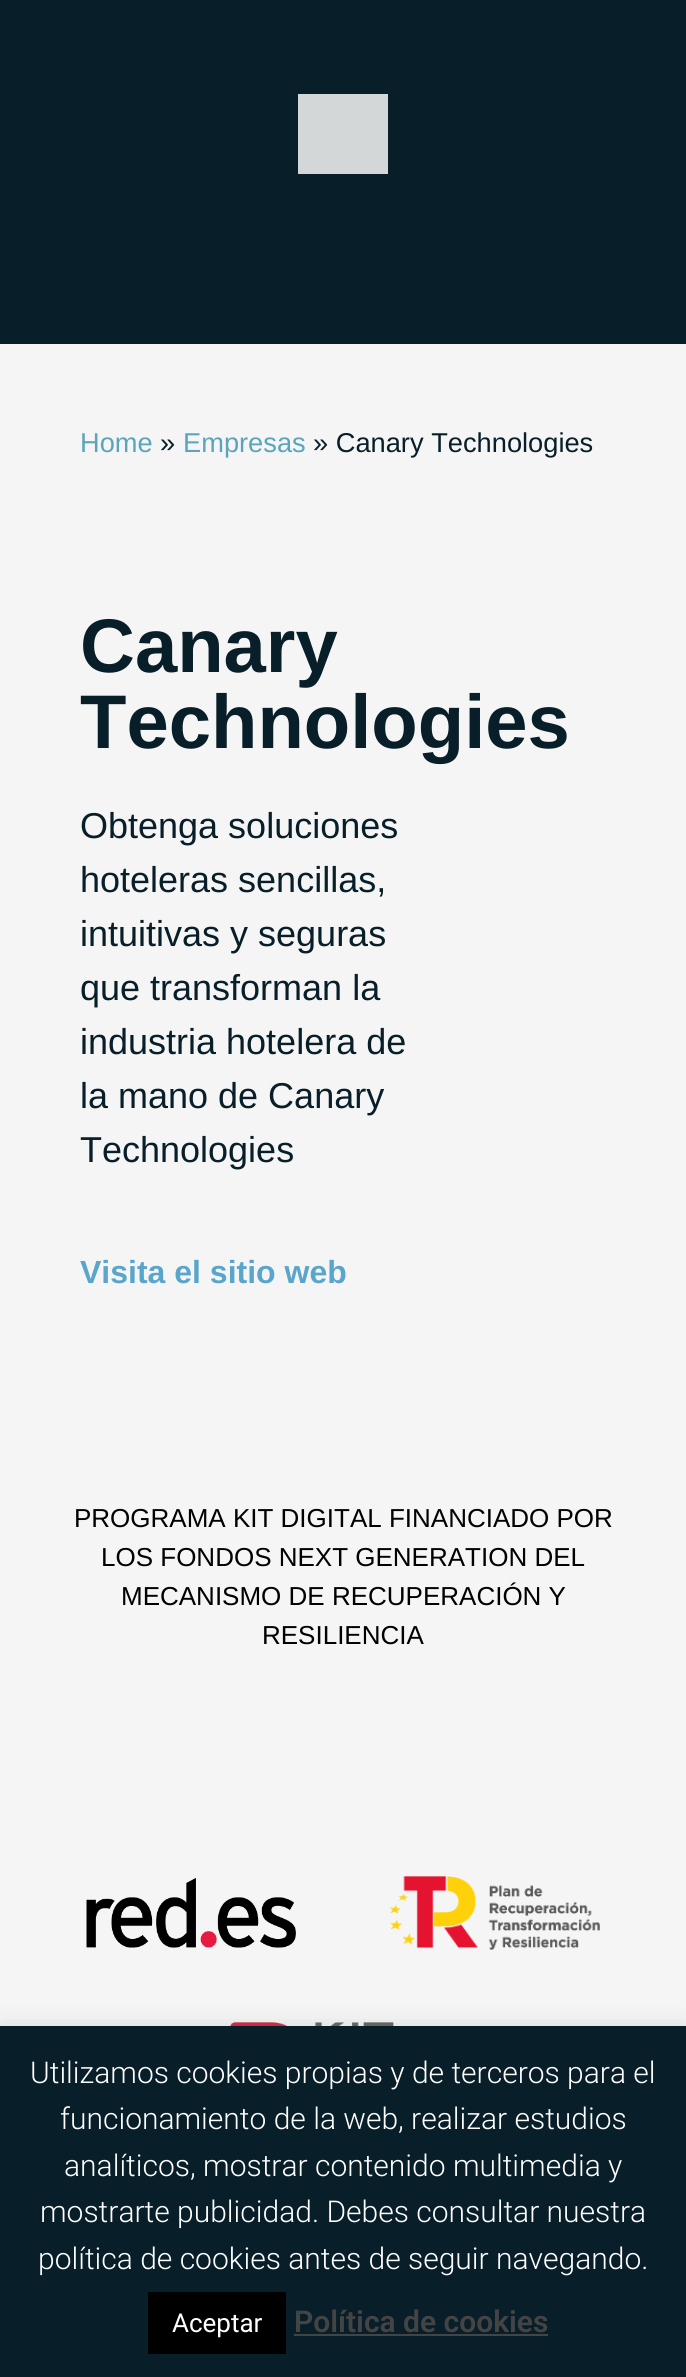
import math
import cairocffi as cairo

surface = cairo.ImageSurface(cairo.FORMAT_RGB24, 686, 2377)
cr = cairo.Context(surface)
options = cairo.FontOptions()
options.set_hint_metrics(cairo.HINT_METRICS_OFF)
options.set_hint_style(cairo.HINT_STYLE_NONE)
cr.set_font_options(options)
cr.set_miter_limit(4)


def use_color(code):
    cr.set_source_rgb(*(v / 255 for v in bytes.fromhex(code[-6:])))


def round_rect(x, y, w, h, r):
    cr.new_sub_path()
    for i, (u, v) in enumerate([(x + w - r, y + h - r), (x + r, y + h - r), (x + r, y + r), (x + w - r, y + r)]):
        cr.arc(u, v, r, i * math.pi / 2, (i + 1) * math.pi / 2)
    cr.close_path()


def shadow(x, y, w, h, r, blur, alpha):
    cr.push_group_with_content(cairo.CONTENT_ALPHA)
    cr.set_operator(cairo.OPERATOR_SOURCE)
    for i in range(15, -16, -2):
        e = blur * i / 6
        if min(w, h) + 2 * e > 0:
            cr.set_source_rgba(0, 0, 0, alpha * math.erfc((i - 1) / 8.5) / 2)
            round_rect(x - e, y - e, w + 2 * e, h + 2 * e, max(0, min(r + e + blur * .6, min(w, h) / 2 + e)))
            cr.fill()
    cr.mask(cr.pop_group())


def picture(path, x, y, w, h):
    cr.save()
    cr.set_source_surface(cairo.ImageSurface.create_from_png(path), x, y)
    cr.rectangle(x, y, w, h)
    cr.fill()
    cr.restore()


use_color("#f5f5f5")
cr.paint()
use_color("#081e29")
cr.rectangle(0, 0, 686, 344)
cr.fill()
use_color("#d3d7d8")
cr.rectangle(298, 94, 90, 80)
cr.fill()
cr.select_font_face("Liberation Sans")
cr.set_font_size(27.25)
use_color("#5aa5bc")
cr.move_to(80, 452)
cr.show_text("Home")
use_color("#081e29")
cr.move_to(160, 452)
cr.show_text("»")
use_color("#5aa5bc")
cr.move_to(183, 452)
cr.show_text("Empresas")
use_color("#081e29")
cr.move_to(313, 452)
cr.show_text("» Canary Technologies")
cr.select_font_face("Liberation Sans", cairo.FONT_SLANT_NORMAL, cairo.FONT_WEIGHT_BOLD)
cr.set_font_size(76)
cr.move_to(80, 672)
cr.show_text("Canary")
cr.move_to(80, 748)
cr.show_text("Technologies")
cr.select_font_face("Liberation Sans")
cr.set_font_size(36)
cr.move_to(80, 838)
cr.show_text("Obtenga soluciones")
cr.move_to(80, 892)
cr.show_text("hoteleras sencillas,")
cr.move_to(80, 946)
cr.show_text("intuitivas y seguras")
cr.move_to(80, 1000)
cr.show_text("que transforman la")
cr.move_to(80, 1054)
cr.show_text("industria hotelera de")
cr.move_to(80, 1108)
cr.show_text("la mano de Canary")
cr.move_to(80, 1162)
cr.show_text("Technologies")
cr.select_font_face("Liberation Sans", cairo.FONT_SLANT_NORMAL, cairo.FONT_WEIGHT_BOLD)
cr.set_font_size(32)
use_color("#5aa5cb")
cr.move_to(80, 1283)
cr.show_text("Visita el sitio web")
cr.select_font_face("Liberation Sans")
cr.set_font_size(26)
use_color("#000000")
cr.move_to(74, 1527)
cr.show_text("PROGRAMA KIT DIGITAL FINANCIADO POR")
cr.move_to(101, 1566)
cr.show_text("LOS FONDOS NEXT GENERATION DEL")
cr.move_to(121, 1605)
cr.show_text("MECANISMO DE RECUPERACIÓN Y")
cr.move_to(262, 1644)
cr.show_text("RESILIENCIA")
picture("img1.png", 86, 1878, 210, 70)
picture("img2.png", 390, 1876, 210, 74)
picture("img3.png", 230, 2022, 164, 4)
use_color("#acabab")
shadow(0, 2024, 686, 352, 0, 10, 0.3)
use_color("#081e29")
cr.rectangle(0, 2026, 686, 351)
cr.fill()
cr.select_font_face("Roboto Light")
cr.set_font_size(30)
use_color("#ffffff")
cr.move_to(30, 2083)
cr.show_text("Utilizamos cookies propias y de terceros para el")
cr.move_to(60, 2129)
cr.show_text("funcionamiento de la web, realizar estudios")
cr.move_to(64, 2176)
cr.show_text("analíticos, mostrar contenido multimedia y")
cr.move_to(40, 2222)
cr.show_text("mostrarte publicidad. Debes consultar nuestra")
cr.move_to(38, 2269)
cr.show_text("política de cookies antes de seguir navegando.")
use_color("#000000")
cr.rectangle(148, 2292, 138, 62)
cr.fill()
cr.select_font_face("Roboto")
cr.set_font_size(26)
use_color("#ffffff")
cr.move_to(172, 2332)
cr.show_text("Aceptar")
cr.select_font_face("Roboto SemiBold")
cr.set_font_size(30)
use_color("#444444")
cr.move_to(294, 2332)
cr.show_text("Política de cookies")
cr.rectangle(294, 2334, 254, 2)
cr.fill()
surface.write_to_png("result.png")
